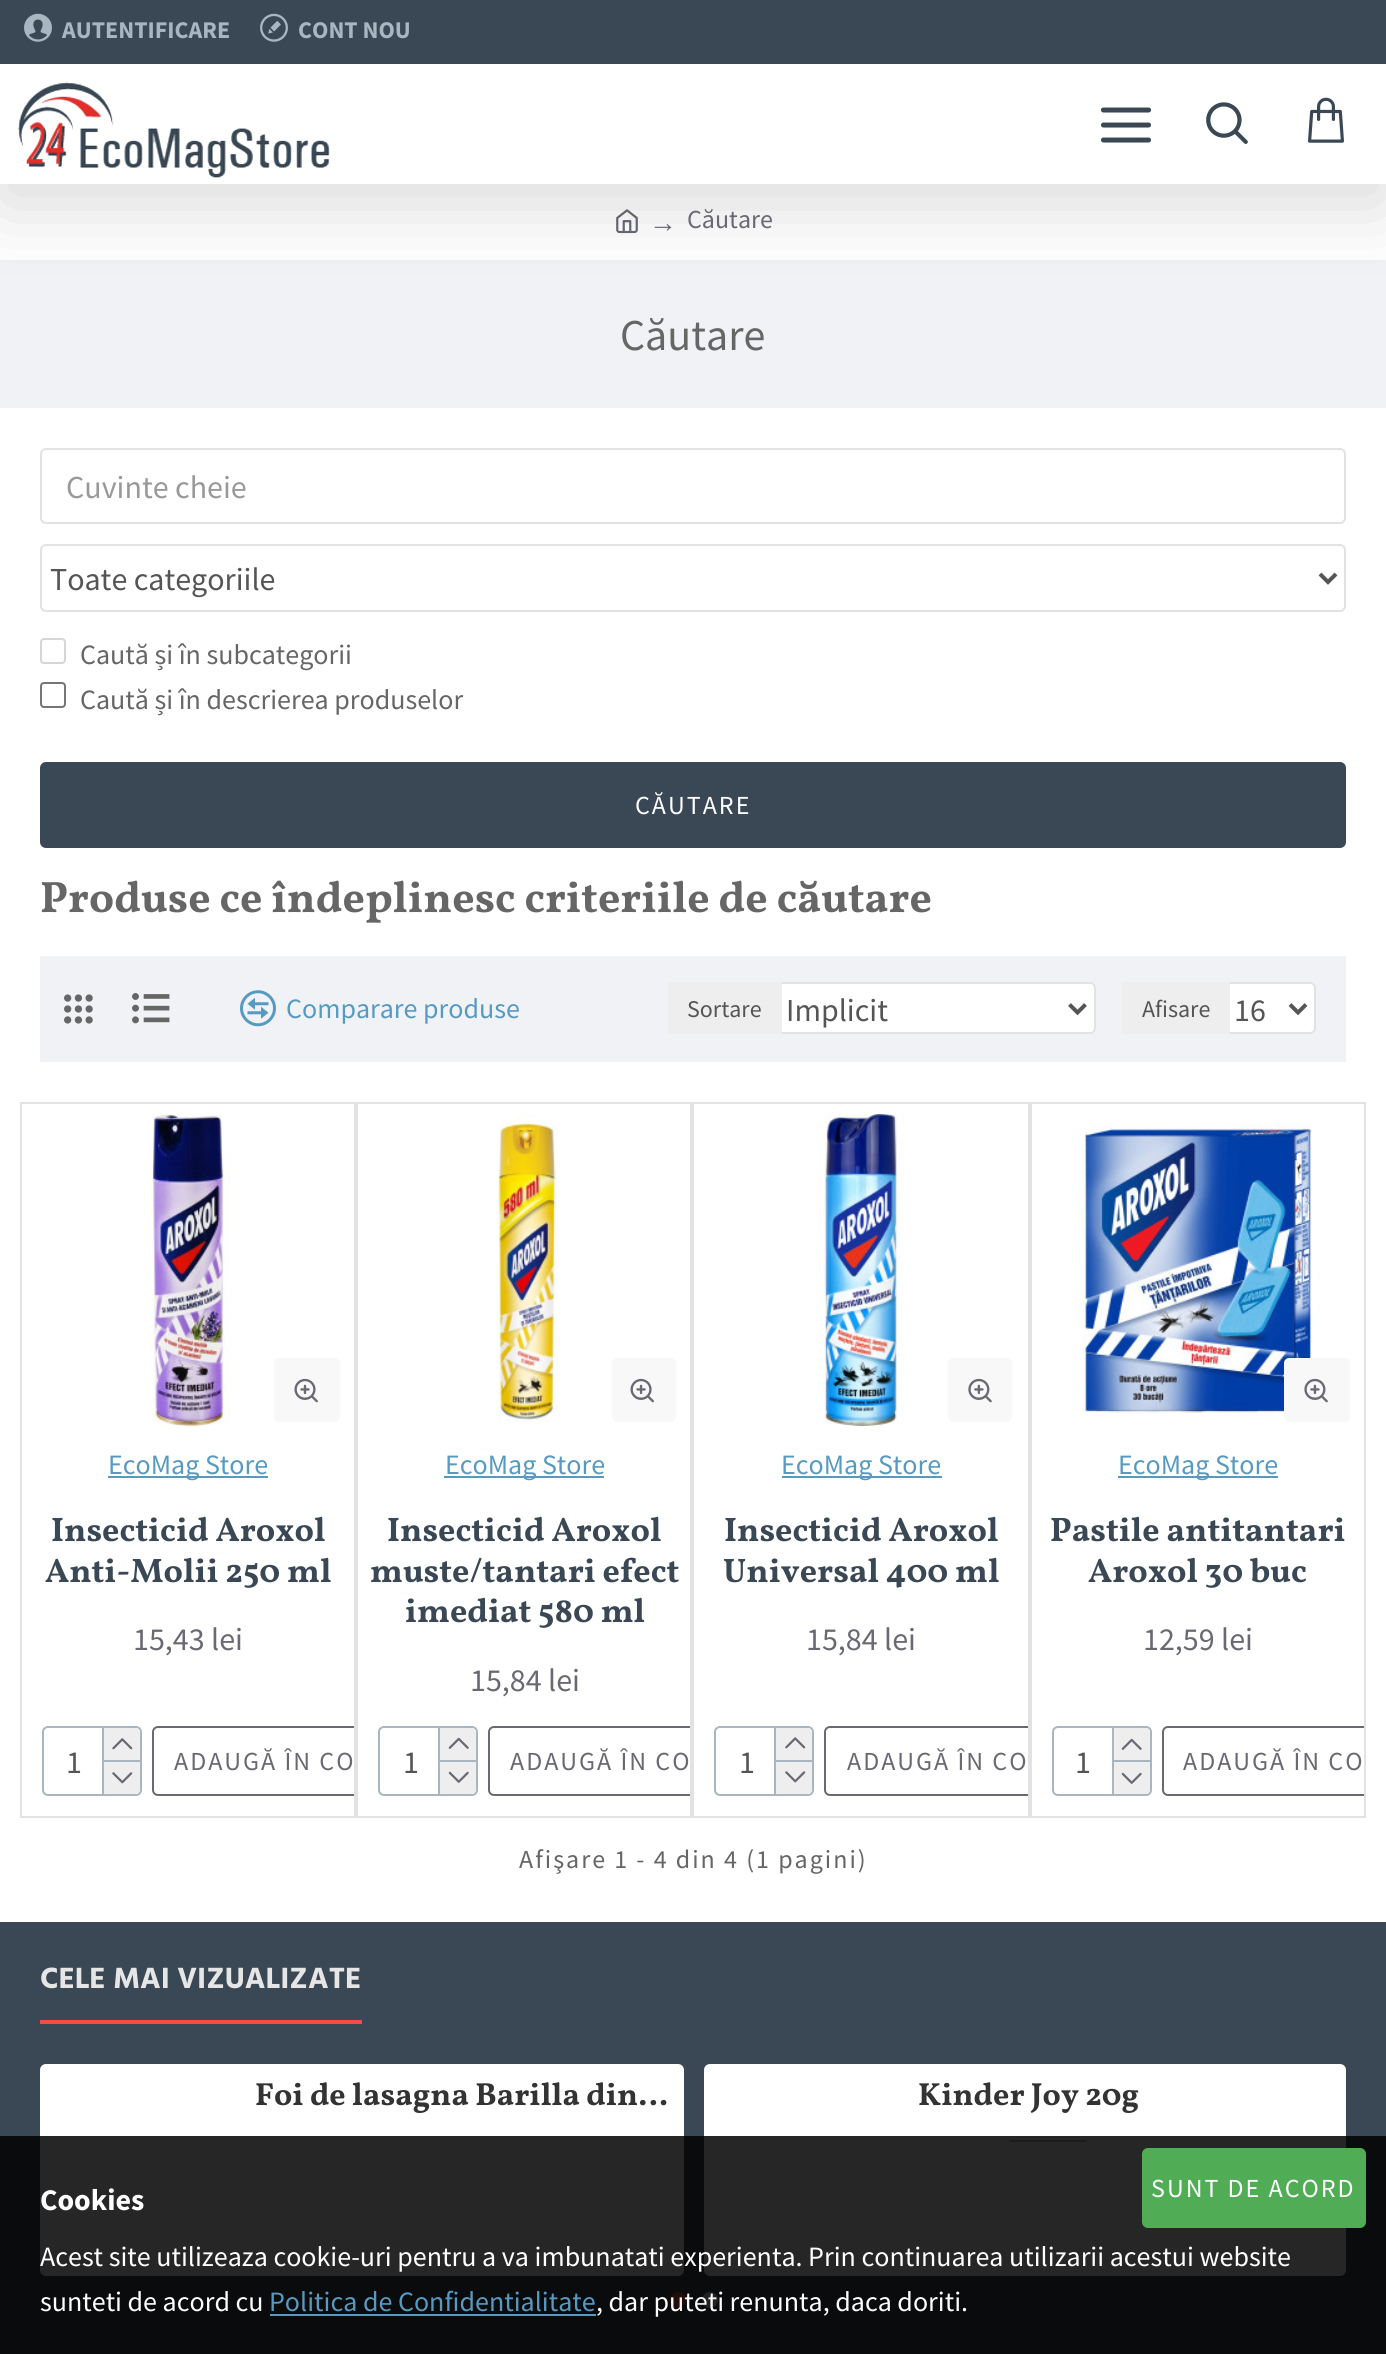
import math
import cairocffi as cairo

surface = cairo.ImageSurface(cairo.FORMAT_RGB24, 1386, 2354)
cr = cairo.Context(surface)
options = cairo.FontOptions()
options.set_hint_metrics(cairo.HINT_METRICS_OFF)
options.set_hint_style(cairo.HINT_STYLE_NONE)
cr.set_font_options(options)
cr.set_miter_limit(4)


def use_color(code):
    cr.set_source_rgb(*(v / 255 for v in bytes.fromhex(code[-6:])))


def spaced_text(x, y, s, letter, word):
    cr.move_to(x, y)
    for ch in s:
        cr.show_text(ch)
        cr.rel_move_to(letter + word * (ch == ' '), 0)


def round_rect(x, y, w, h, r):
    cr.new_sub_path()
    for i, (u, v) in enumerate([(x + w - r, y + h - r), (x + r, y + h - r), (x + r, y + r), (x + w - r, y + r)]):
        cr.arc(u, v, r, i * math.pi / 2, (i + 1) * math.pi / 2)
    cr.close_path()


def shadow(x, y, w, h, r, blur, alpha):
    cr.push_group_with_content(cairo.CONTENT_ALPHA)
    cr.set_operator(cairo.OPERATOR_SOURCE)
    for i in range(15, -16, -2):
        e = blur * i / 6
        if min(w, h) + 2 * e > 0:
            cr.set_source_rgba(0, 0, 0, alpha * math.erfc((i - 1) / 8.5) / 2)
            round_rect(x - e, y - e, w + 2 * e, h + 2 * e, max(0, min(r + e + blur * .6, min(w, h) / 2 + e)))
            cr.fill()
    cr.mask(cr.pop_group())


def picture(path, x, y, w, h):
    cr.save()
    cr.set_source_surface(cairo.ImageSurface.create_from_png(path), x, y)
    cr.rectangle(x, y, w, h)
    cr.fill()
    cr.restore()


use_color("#ffffff")
cr.paint()
picture("img7.png", 616, 209, 22, 25)
use_color("#f0f2f5")
cr.rectangle(0, 260, 1386, 148)
cr.fill()
use_color("#000000")
shadow(0, 14, 1386, 190, 0, 40, 0.15)
use_color("#3a4855")
cr.rectangle(0, 0, 1386, 64)
cr.fill()
picture("img1.png", 24, 13, 28, 29)
cr.select_font_face("Source Sans Pro", cairo.FONT_SLANT_NORMAL, cairo.FONT_WEIGHT_BOLD)
cr.set_font_size(24)
use_color("#a7b6c0")
cr.move_to(62, 38)
cr.show_text("AUTENTIFICARE")
picture("img2.png", 260, 13, 28, 29)
cr.move_to(298, 38)
cr.show_text("CONT NOU")
use_color("#ffffff")
cr.rectangle(0, 64, 1386, 120)
cr.fill()
picture("img3.png", 18, 82, 312, 96)
picture("img4.png", 1101, 107, 50, 36)
picture("img5.png", 1206, 102, 42, 42)
picture("img6.png", 1308, 97, 36, 46)
cr.select_font_face("Liberation Sans")
cr.set_font_size(28)
use_color("#696973")
cr.move_to(649, 232)
cr.show_text("→")
cr.select_font_face("Source Sans Pro")
cr.set_font_size(26)
cr.move_to(687, 228)
cr.show_text("Căutare")
cr.set_font_size(44)
use_color("#666666")
cr.move_to(620, 350)
cr.show_text("Căutare")
round_rect(41, 449, 1304, 74, 5)
use_color("#e2e2e2")
cr.stroke()
cr.set_font_size(32)
use_color("#999999")
cr.move_to(66, 498)
cr.show_text("Cuvinte cheie")
round_rect(41, 545, 1304, 66, 5)
use_color("#e2e2e2")
cr.stroke()
cr.new_path()
cr.move_to(1320, 574)
cr.line_to(1328, 582)
cr.line_to(1336, 574)
use_color("#555555")
cr.set_line_width(4)
cr.stroke()
cr.move_to(50, 590)
cr.show_text("Toate categoriile")
round_rect(41, 639, 24, 24, 3)
use_color("#d6d6d6")
cr.set_line_width(2)
cr.stroke()
cr.set_font_size(28)
use_color("#666666")
cr.move_to(80, 664)
cr.show_text("Caută și în subcategorii")
round_rect(41, 683, 24, 24, 3)
use_color("#767676")
cr.stroke()
use_color("#666666")
cr.move_to(80, 709)
cr.show_text("Caută și în descrierea produselor")
use_color("#3a4855")
round_rect(40, 762, 1306, 86, 6)
cr.fill()
cr.set_font_size(26)
use_color("#ffffff")
spaced_text(635, 814, "CĂUTARE", 2, 0)
cr.select_font_face("Vollkorn", cairo.FONT_SLANT_NORMAL, cairo.FONT_WEIGHT_BOLD)
cr.set_font_size(44)
use_color("#666666")
cr.move_to(40, 912)
cr.show_text("Produse ce îndeplinesc criteriile de căutare")
use_color("#f0f2f5")
cr.rectangle(40, 956, 1306, 106)
cr.fill()
picture("img8.png", 64, 994, 29, 30)
picture("img9.png", 132, 993, 38, 31)
picture("img10.png", 240, 990, 36, 37)
cr.select_font_face("Source Sans Pro")
cr.set_font_size(28)
use_color("#579ac1")
cr.move_to(286, 1018)
cr.show_text("Comparare produse")
use_color("#ffffff")
round_rect(777, 983, 318, 50, 5)
cr.fill_preserve()
use_color("#e2e2e2")
cr.stroke()
use_color("#eeeeee")
cr.rectangle(668, 982, 114, 52)
cr.fill()
cr.set_font_size(24)
use_color("#555555")
cr.move_to(687, 1017)
cr.show_text("Sortare")
cr.new_path()
cr.move_to(1069.5, 1004.5)
cr.line_to(1077.5, 1012.5)
cr.line_to(1085.5, 1004.5)
cr.set_line_width(4)
cr.stroke()
cr.set_font_size(32)
cr.move_to(786, 1021)
cr.show_text("Implicit")
use_color("#ffffff")
round_rect(1225, 983, 90, 50, 5)
cr.fill_preserve()
use_color("#e2e2e2")
cr.set_line_width(2)
cr.stroke()
use_color("#eeeeee")
cr.rectangle(1122, 982, 108, 52)
cr.fill()
cr.set_font_size(24)
use_color("#555555")
cr.move_to(1142, 1017)
cr.show_text("Afisare")
cr.new_path()
cr.move_to(1290, 1004.5)
cr.line_to(1298, 1012.5)
cr.line_to(1306, 1004.5)
cr.set_line_width(4)
cr.stroke()
cr.set_font_size(32)
cr.move_to(1234, 1021)
cr.show_text("16")
cr.rectangle(21, 1103, 334, 714)
use_color("#e2e2e2")
cr.set_line_width(2)
cr.stroke()
picture("img11.png", 151, 1114, 80, 312)
use_color("#f8f8f8")
round_rect(274, 1358, 66, 64, 5)
cr.fill()
picture("img12.png", 294, 1378, 24, 25)
use_color("#579ac1")
cr.rectangle(108, 1476, 160, 2)
cr.fill()
cr.set_font_size(28)
cr.move_to(108, 1474)
cr.show_text("EcoMag Store")
cr.select_font_face("Vollkorn", cairo.FONT_SLANT_NORMAL, cairo.FONT_WEIGHT_BOLD)
cr.set_font_size(34)
use_color("#3a4855")
cr.move_to(51, 1541)
cr.show_text("Insecticid Aroxol")
cr.move_to(45, 1582)
cr.show_text("Anti-Molii 250 ml")
cr.select_font_face("Source Sans Pro")
cr.set_font_size(32)
use_color("#696973")
cr.move_to(133, 1650)
cr.show_text("15,43 lei")
round_rect(43, 1727, 98, 68, 5)
use_color("#a7b6c0")
cr.stroke()
use_color("#555555")
cr.move_to(66, 1773)
cr.show_text("1")
use_color("#a7b6c0")
cr.rectangle(102, 1728, 2, 66)
cr.fill()
use_color("#eeeeee")
cr.new_path()
cr.move_to(104, 1728)
cr.line_to(136, 1728)
cr.curve_to(138, 1728, 140, 1730, 140, 1732)
cr.line_to(140, 1760)
cr.line_to(104, 1760)
cr.close_path()
cr.fill()
use_color("#a7b6c0")
cr.rectangle(104, 1760, 36, 2)
cr.fill()
picture("img13.png", 112, 1738, 21, 12)
use_color("#eeeeee")
cr.new_path()
cr.move_to(104, 1762)
cr.line_to(140, 1762)
cr.line_to(140, 1790)
cr.curve_to(140, 1792, 138, 1794, 136, 1794)
cr.line_to(104, 1794)
cr.close_path()
cr.fill()
picture("img14.png", 112, 1772, 21, 12)
cr.save()
cr.rectangle(22, 1104, 332, 712)
cr.clip()
round_rect(153, 1727, 240, 68, 5)
use_color("#696973")
cr.stroke()
cr.restore()
cr.set_font_size(26)
use_color("#696973")
spaced_text(174, 1770, "ADAUGĂ ÎN CO", 2, 0)
cr.rectangle(357, 1103, 334, 714)
use_color("#e2e2e2")
cr.stroke()
picture("img15.png", 497, 1114, 61, 310)
use_color("#f8f8f8")
round_rect(612, 1358, 64, 64, 5)
cr.fill()
picture("img16.png", 630, 1378, 24, 25)
use_color("#579ac1")
cr.rectangle(444, 1476, 160, 2)
cr.fill()
cr.set_font_size(28)
cr.move_to(445, 1474)
cr.show_text("EcoMag Store")
cr.select_font_face("Vollkorn", cairo.FONT_SLANT_NORMAL, cairo.FONT_WEIGHT_BOLD)
cr.set_font_size(34)
use_color("#3a4855")
cr.move_to(387, 1541)
cr.show_text("Insecticid Aroxol")
cr.move_to(370, 1582)
cr.show_text("muste/tantari efect")
cr.move_to(405, 1622)
cr.show_text("imediat 580 ml")
cr.select_font_face("Source Sans Pro")
cr.set_font_size(32)
use_color("#696973")
cr.move_to(470, 1691)
cr.show_text("15,84 lei")
round_rect(379, 1727, 98, 68, 5)
use_color("#a7b6c0")
cr.stroke()
use_color("#555555")
cr.move_to(403, 1773)
cr.show_text("1")
use_color("#a7b6c0")
cr.rectangle(438, 1728, 2, 66)
cr.fill()
use_color("#eeeeee")
cr.new_path()
cr.move_to(440, 1728)
cr.line_to(472, 1728)
cr.curve_to(474, 1728, 476, 1730, 476, 1732)
cr.line_to(476, 1760)
cr.line_to(440, 1760)
cr.close_path()
cr.fill()
use_color("#a7b6c0")
cr.rectangle(440, 1760, 36, 2)
cr.fill()
picture("img17.png", 448, 1737, 21, 12)
use_color("#eeeeee")
cr.new_path()
cr.move_to(440, 1762)
cr.line_to(476, 1762)
cr.line_to(476, 1790)
cr.curve_to(476, 1792, 474, 1794, 472, 1794)
cr.line_to(440, 1794)
cr.close_path()
cr.fill()
picture("img18.png", 448, 1771, 21, 12)
cr.save()
cr.rectangle(358, 1104, 332, 712)
cr.clip()
round_rect(489, 1727, 240, 68, 5)
use_color("#696973")
cr.stroke()
cr.restore()
cr.set_font_size(26)
use_color("#696973")
spaced_text(510, 1770, "ADAUGĂ ÎN CO", 2, 0)
cr.rectangle(693, 1103, 336, 714)
use_color("#e2e2e2")
cr.stroke()
picture("img19.png", 824, 1114, 81, 312)
use_color("#f8f8f8")
round_rect(948, 1358, 64, 64, 5)
cr.fill()
picture("img20.png", 968, 1378, 24, 25)
use_color("#579ac1")
cr.rectangle(782, 1476, 160, 2)
cr.fill()
cr.set_font_size(28)
cr.move_to(781, 1474)
cr.show_text("EcoMag Store")
cr.select_font_face("Vollkorn", cairo.FONT_SLANT_NORMAL, cairo.FONT_WEIGHT_BOLD)
cr.set_font_size(34)
use_color("#3a4855")
cr.move_to(724, 1541)
cr.show_text("Insecticid Aroxol")
cr.move_to(723, 1582)
cr.show_text("Universal 400 ml")
cr.select_font_face("Source Sans Pro")
cr.set_font_size(32)
use_color("#696973")
cr.move_to(806, 1650)
cr.show_text("15,84 lei")
round_rect(715, 1727, 98, 68, 5)
use_color("#a7b6c0")
cr.stroke()
use_color("#555555")
cr.move_to(739, 1773)
cr.show_text("1")
use_color("#a7b6c0")
cr.rectangle(774, 1728, 2, 66)
cr.fill()
use_color("#eeeeee")
cr.new_path()
cr.move_to(776, 1728)
cr.line_to(808, 1728)
cr.curve_to(810, 1728, 812, 1730, 812, 1732)
cr.line_to(812, 1760)
cr.line_to(776, 1760)
cr.close_path()
cr.fill()
use_color("#a7b6c0")
cr.rectangle(776, 1760, 36, 2)
cr.fill()
picture("img21.png", 785, 1737, 21, 12)
use_color("#eeeeee")
cr.new_path()
cr.move_to(776, 1762)
cr.line_to(812, 1762)
cr.line_to(812, 1790)
cr.curve_to(812, 1792, 810, 1794, 808, 1794)
cr.line_to(776, 1794)
cr.close_path()
cr.fill()
picture("img22.png", 785, 1771, 21, 12)
cr.save()
cr.rectangle(694, 1104, 334, 712)
cr.clip()
round_rect(825, 1727, 240, 68, 5)
use_color("#696973")
cr.stroke()
cr.restore()
cr.set_font_size(26)
use_color("#696973")
spaced_text(847, 1770, "ADAUGĂ ÎN CO", 2, 0)
cr.rectangle(1031, 1103, 334, 714)
use_color("#e2e2e2")
cr.stroke()
picture("img23.png", 1082, 1124, 230, 290)
use_color("#f8f8f8")
round_rect(1284, 1358, 66, 64, 5)
cr.fill()
picture("img24.png", 1304, 1378, 24, 25)
use_color("#579ac1")
cr.rectangle(1118, 1476, 160, 2)
cr.fill()
cr.set_font_size(28)
cr.move_to(1118, 1474)
cr.show_text("EcoMag Store")
cr.select_font_face("Vollkorn", cairo.FONT_SLANT_NORMAL, cairo.FONT_WEIGHT_BOLD)
cr.set_font_size(34)
use_color("#3a4855")
cr.move_to(1050, 1541)
cr.show_text("Pastile antitantari")
cr.move_to(1088, 1582)
cr.show_text("Aroxol 30 buc")
cr.select_font_face("Source Sans Pro")
cr.set_font_size(32)
use_color("#696973")
cr.move_to(1143, 1650)
cr.show_text("12,59 lei")
round_rect(1053, 1727, 98, 68, 5)
use_color("#a7b6c0")
cr.stroke()
use_color("#555555")
cr.move_to(1075, 1773)
cr.show_text("1")
use_color("#a7b6c0")
cr.rectangle(1112, 1728, 2, 66)
cr.fill()
use_color("#eeeeee")
cr.new_path()
cr.move_to(1114, 1728)
cr.line_to(1146, 1728)
cr.curve_to(1148, 1728, 1150, 1730, 1150, 1732)
cr.line_to(1150, 1760)
cr.line_to(1114, 1760)
cr.close_path()
cr.fill()
use_color("#a7b6c0")
cr.rectangle(1114, 1760, 36, 2)
cr.fill()
picture("img25.png", 1121, 1738, 21, 12)
use_color("#eeeeee")
cr.new_path()
cr.move_to(1114, 1762)
cr.line_to(1150, 1762)
cr.line_to(1150, 1790)
cr.curve_to(1150, 1792, 1148, 1794, 1146, 1794)
cr.line_to(1114, 1794)
cr.close_path()
cr.fill()
picture("img26.png", 1121, 1772, 21, 12)
cr.save()
cr.rectangle(1032, 1104, 332, 712)
cr.clip()
round_rect(1163, 1727, 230, 68, 5)
use_color("#696973")
cr.stroke()
cr.restore()
cr.set_font_size(26)
use_color("#696973")
spaced_text(1183, 1770, "ADAUGĂ ÎN CO", 2, 0)
use_color("#666666")
spaced_text(519, 1868, "Afişare 1 - 4 din 4 (1 pagini)", 2, 0)
use_color("#3a4855")
cr.rectangle(0, 1922, 1386, 432)
cr.fill()
use_color("#ef5042")
cr.rectangle(40, 2020, 322, 4)
cr.fill()
cr.select_font_face("Hind Madurai", cairo.FONT_SLANT_NORMAL, cairo.FONT_WEIGHT_BOLD)
cr.set_font_size(30)
use_color("#e6e6e6")
cr.move_to(40, 1988)
cr.show_text("CELE MAI VIZUALIZATE")
use_color("#ffffff")
round_rect(40, 2064, 644, 212, 6)
cr.fill()
cr.select_font_face("Vollkorn", cairo.FONT_SLANT_NORMAL, cairo.FONT_WEIGHT_BOLD)
cr.set_font_size(32)
use_color("#333333")
cr.move_to(255, 2105)
cr.show_text("Foi de lasagna Barilla din…")
use_color("#ffffff")
round_rect(704, 2064, 642, 212, 6)
cr.fill()
use_color("#333333")
cr.move_to(918, 2105)
cr.show_text("Kinder Joy 20g")
use_color("#a7b6c0")
cr.rectangle(1010, 2140, 76, 2)
cr.fill()
use_color("#ef5042")
cr.arc(678, 2300, 8, 0, 2 * math.pi)
cr.fill()
use_color("#e2e2e2")
cr.arc(710, 2300, 8, 0, 2 * math.pi)
cr.fill()
cr.set_source_rgba(0, 0, 0, 0.85)
cr.rectangle(0, 2136, 1386, 218)
cr.fill()
use_color("#50ad55")
round_rect(1142, 2148, 224, 80, 6)
cr.fill()
cr.select_font_face("Source Sans Pro")
cr.set_font_size(26)
use_color("#ffffff")
spaced_text(1151, 2197, "SUNT DE ACORD", 2, 0)
cr.select_font_face("Source Sans Pro", cairo.FONT_SLANT_NORMAL, cairo.FONT_WEIGHT_BOLD)
cr.set_font_size(30)
cr.move_to(40, 2210)
cr.show_text("Cookies")
cr.select_font_face("Source Sans Pro")
cr.set_font_size(28)
cr.move_to(40, 2266)
cr.show_text("Acest site utilizeaza cookie-uri pentru a va imbunatati experienta. Prin continuarea utilizarii acestui website")
cr.move_to(40, 2311)
cr.show_text("sunteti de acord cu")
use_color("#579ac1")
cr.move_to(269, 2311)
cr.show_text("Politica de Confidentialitate")
cr.rectangle(270, 2314, 326, 2)
cr.fill()
use_color("#ffffff")
cr.move_to(596, 2311)
cr.show_text(", dar puteti renunta, daca doriti.")
surface.write_to_png("result.png")
